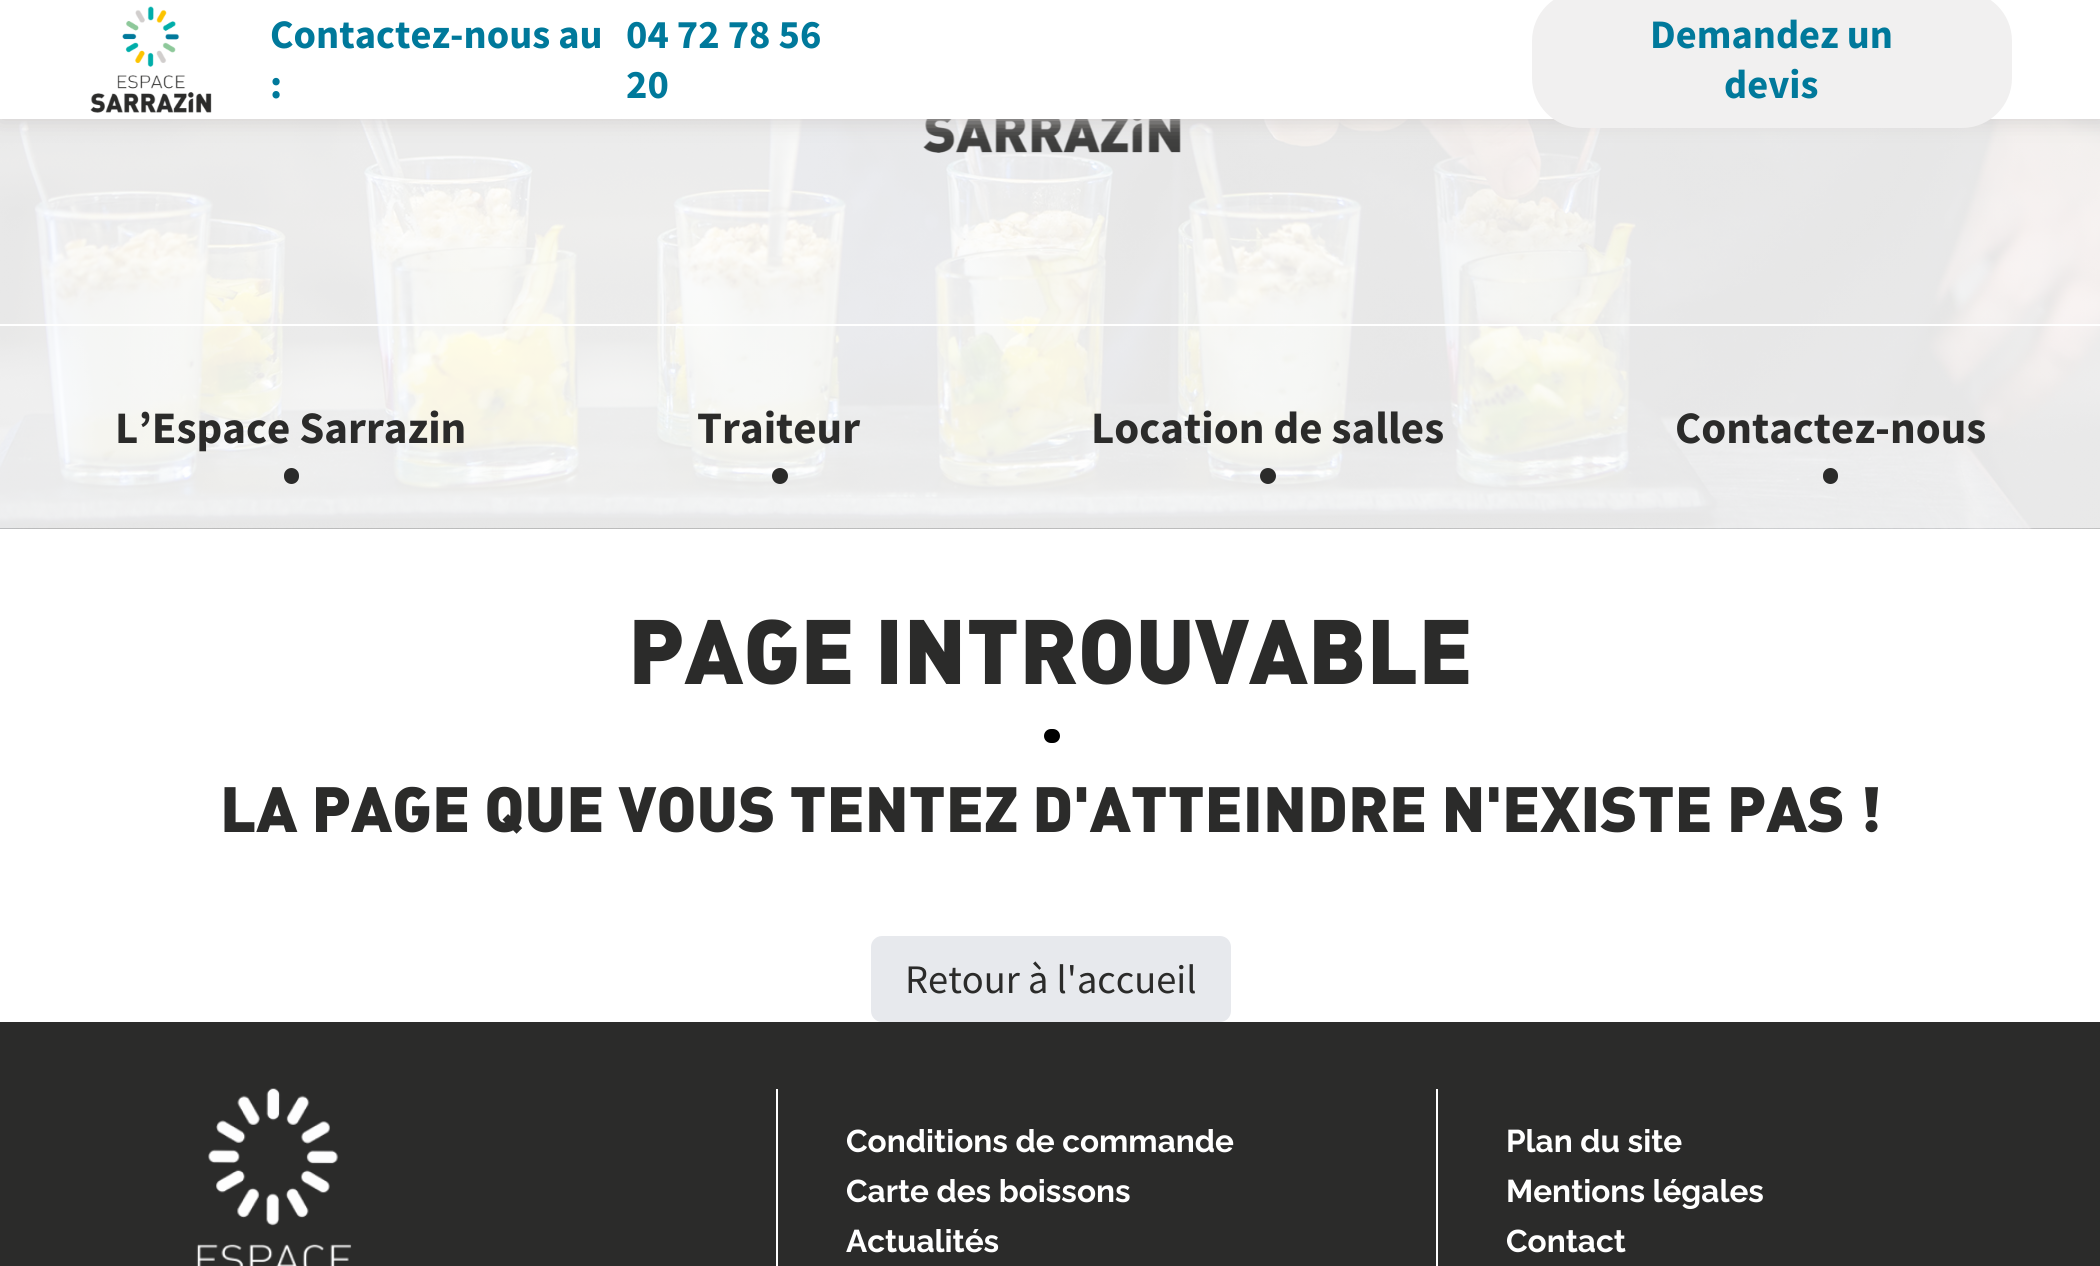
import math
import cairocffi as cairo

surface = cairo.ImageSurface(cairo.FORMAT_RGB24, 2100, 1266)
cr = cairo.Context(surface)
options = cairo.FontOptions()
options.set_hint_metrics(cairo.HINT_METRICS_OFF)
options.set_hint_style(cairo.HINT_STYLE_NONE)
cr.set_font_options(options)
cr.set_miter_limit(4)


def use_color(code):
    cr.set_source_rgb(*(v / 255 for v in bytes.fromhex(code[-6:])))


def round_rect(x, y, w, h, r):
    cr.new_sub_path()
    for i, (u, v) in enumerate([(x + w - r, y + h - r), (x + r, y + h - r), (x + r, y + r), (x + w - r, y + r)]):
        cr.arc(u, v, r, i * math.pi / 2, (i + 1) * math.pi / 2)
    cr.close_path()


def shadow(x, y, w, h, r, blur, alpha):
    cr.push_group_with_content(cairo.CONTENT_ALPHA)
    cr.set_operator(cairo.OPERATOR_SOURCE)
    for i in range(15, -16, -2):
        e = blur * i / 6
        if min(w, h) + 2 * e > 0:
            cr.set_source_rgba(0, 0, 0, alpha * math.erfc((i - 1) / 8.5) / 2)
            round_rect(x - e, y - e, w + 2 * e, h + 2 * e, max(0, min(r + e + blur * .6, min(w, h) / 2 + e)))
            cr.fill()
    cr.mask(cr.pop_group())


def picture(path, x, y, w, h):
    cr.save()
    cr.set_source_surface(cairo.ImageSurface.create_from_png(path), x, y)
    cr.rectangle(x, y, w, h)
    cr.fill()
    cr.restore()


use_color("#ffffff")
cr.paint()
picture("img2.png", 0, 119, 2100, 410)
picture("img3.png", 923, 119, 258, 34)
use_color("#d2cecd")
shadow(0, 0, 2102, 119, 0, 11, 1)
use_color("#ffffff")
cr.rectangle(0, 0, 2100, 119)
cr.fill()
picture("img1.png", 90, 6, 122, 107)
cr.select_font_face("Source Sans Pro", cairo.FONT_SLANT_NORMAL, cairo.FONT_WEIGHT_BOLD)
cr.set_font_size(40.5)
use_color("#00799b")
cr.move_to(270, 48)
cr.show_text("Contactez-nous au")
cr.move_to(270, 98)
cr.show_text(":")
cr.move_to(626, 48)
cr.show_text("04 72 78 56")
cr.move_to(626, 98)
cr.show_text("20")
use_color("#f1f0f0")
round_rect(1534.5, -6.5, 475, 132, 47.5)
cr.fill_preserve()
cr.set_line_width(5)
cr.stroke()
use_color("#00799b")
cr.move_to(1650, 48)
cr.show_text("Demandez un")
cr.move_to(1724, 98)
cr.show_text("devis")
use_color("#ffffff")
cr.rectangle(0, 324, 2100, 2)
cr.fill()
cr.set_font_size(45)
use_color("#2b2b2a")
cr.move_to(115, 443)
cr.show_text("L’Espace Sarrazin")
round_rect(284, 468, 15, 16, 7.5)
cr.fill()
cr.move_to(697, 443)
cr.show_text("Traiteur")
cr.new_path()
cr.arc(780, 476, 8, 0, 2 * math.pi)
cr.fill()
cr.move_to(1091, 443)
cr.show_text("Location de salles")
cr.new_path()
cr.arc(1268, 476, 8, 0, 2 * math.pi)
cr.fill()
cr.move_to(1675, 443)
cr.show_text("Contactez-nous")
round_rect(1823, 468, 15, 16, 7.5)
cr.fill()
cr.select_font_face("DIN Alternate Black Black")
cr.set_font_size(90)
cr.move_to(628, 684)
cr.show_text("PAGE INTROUVABLE")
use_color("#000000")
round_rect(1044, 729, 16, 14, 7)
cr.fill()
cr.set_font_size(63)
use_color("#2b2b2a")
cr.move_to(220, 832)
cr.show_text("LA PAGE QUE VOUS TENTEZ D'ATTEINDRE N'EXISTE PAS !")
use_color("#e7e9ed")
round_rect(871, 936, 360, 86, 11)
cr.fill()
cr.select_font_face("Source Sans Pro")
cr.set_font_size(40.5)
use_color("#2b2b2a")
cr.move_to(905, 993)
cr.show_text("Retour à l'accueil")
cr.rectangle(0, 1022, 2100, 244)
cr.fill()
picture("img4.png", 196, 1088, 156, 178)
use_color("#ffffff")
cr.rectangle(776, 1089, 2, 177)
cr.fill()
cr.select_font_face("Raleway", cairo.FONT_SLANT_NORMAL, cairo.FONT_WEIGHT_BOLD)
cr.set_font_size(31.5)
cr.move_to(846, 1152)
cr.show_text("Conditions de commande")
cr.move_to(846, 1202)
cr.show_text("Carte des boissons")
cr.move_to(846, 1252)
cr.show_text("Actualités")
cr.rectangle(1436, 1089, 2, 177)
cr.fill()
cr.move_to(1506, 1152)
cr.show_text("Plan du site")
cr.move_to(1506, 1202)
cr.show_text("Mentions légales")
cr.move_to(1506, 1252)
cr.show_text("Contact")
surface.write_to_png("result.png")
